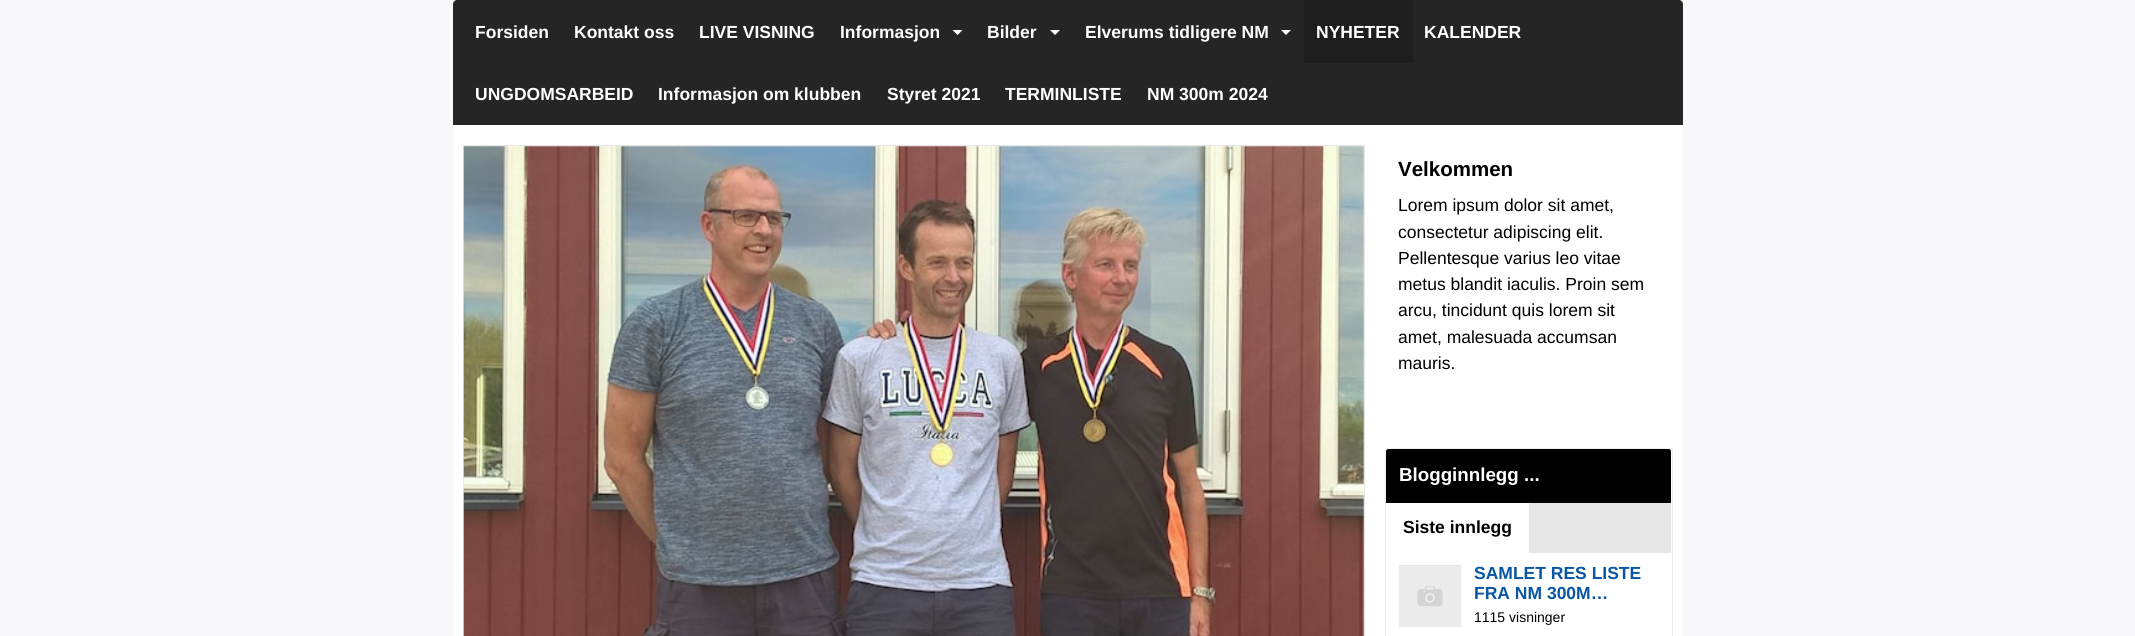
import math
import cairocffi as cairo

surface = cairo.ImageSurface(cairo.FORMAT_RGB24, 2135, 636)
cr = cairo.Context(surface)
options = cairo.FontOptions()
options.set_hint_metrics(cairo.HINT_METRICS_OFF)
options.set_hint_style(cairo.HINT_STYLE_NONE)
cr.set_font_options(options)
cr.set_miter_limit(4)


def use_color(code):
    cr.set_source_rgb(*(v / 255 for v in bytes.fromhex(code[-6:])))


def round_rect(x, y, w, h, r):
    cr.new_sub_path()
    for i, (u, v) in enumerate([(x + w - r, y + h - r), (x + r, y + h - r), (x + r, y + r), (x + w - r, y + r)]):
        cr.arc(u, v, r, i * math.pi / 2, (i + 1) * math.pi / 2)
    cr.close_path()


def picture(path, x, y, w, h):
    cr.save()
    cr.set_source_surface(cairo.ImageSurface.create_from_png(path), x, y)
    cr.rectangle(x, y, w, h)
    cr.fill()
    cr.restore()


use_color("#f8f8fa")
cr.paint()
use_color("#252525")
cr.new_path()
cr.move_to(457, 0)
cr.line_to(1679, 0)
cr.curve_to(1681, 0, 1683, 2, 1683, 4)
cr.line_to(1683, 125)
cr.line_to(453, 125)
cr.line_to(453, 4)
cr.curve_to(453, 2, 455, 0, 457, 0)
cr.close_path()
cr.fill()
cr.select_font_face("Liberation Sans", cairo.FONT_SLANT_NORMAL, cairo.FONT_WEIGHT_BOLD)
cr.set_font_size(17.5)
use_color("#ffffff")
cr.move_to(475, 38)
cr.show_text("Forsiden")
cr.move_to(574, 38)
cr.show_text("Kontakt oss")
cr.move_to(699, 38)
cr.show_text("LIVE VISNING")
cr.move_to(840, 38)
cr.show_text("Informasjon")
cr.new_path()
cr.move_to(952.5, 30)
cr.line_to(962.5, 30)
cr.line_to(957.5, 35)
cr.close_path()
cr.fill()
cr.move_to(987, 38)
cr.show_text("Bilder")
cr.new_path()
cr.move_to(1050, 30)
cr.line_to(1060, 30)
cr.line_to(1055, 35)
cr.close_path()
cr.fill()
cr.move_to(1085, 38)
cr.show_text("Elverums tidligere NM")
cr.new_path()
cr.move_to(1281, 30)
cr.line_to(1291, 30)
cr.line_to(1286, 35)
cr.close_path()
cr.fill()
use_color("#1e1e1e")
cr.rectangle(1304, 0, 109, 63)
cr.fill()
use_color("#ffffff")
cr.move_to(1316, 38)
cr.show_text("NYHETER")
cr.move_to(1424, 38)
cr.show_text("KALENDER")
cr.move_to(475, 100)
cr.show_text("UNGDOMSARBEID")
cr.move_to(658, 100)
cr.show_text("Informasjon om klubben")
cr.move_to(887, 100)
cr.show_text("Styret 2021")
cr.move_to(1005, 100)
cr.show_text("TERMINLISTE")
cr.move_to(1147, 100)
cr.show_text("NM 300m 2024")
cr.rectangle(453, 125, 1230, 511)
cr.fill()
cr.save()
round_rect(463, 145, 902, 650, 2.5)
cr.clip()
use_color("#e5e5e5")
cr.rectangle(463, 145, 902, 1)
cr.fill()
cr.restore()
use_color("#e5e5e5")
cr.rectangle(463, 145, 1, 491)
cr.fill()
cr.rectangle(1364, 145, 1, 491)
cr.fill()
picture("img1.png", 463, 146, 901, 490)
cr.set_font_size(20.5)
use_color("#000000")
cr.move_to(1398, 176)
cr.show_text("Velkommen")
cr.select_font_face("Liberation Sans")
cr.set_font_size(17.5)
cr.move_to(1398, 211)
cr.show_text("Lorem ipsum dolor sit amet,")
cr.move_to(1398, 238)
cr.show_text("consectetur adipiscing elit.")
cr.move_to(1398, 264)
cr.show_text("Pellentesque varius leo vitae")
cr.move_to(1398, 290)
cr.show_text("metus blandit iaculis. Proin sem")
cr.move_to(1398, 316)
cr.show_text("arcu, tincidunt quis lorem sit")
cr.move_to(1398, 343)
cr.show_text("amet, malesuada accumsan")
cr.move_to(1398, 369)
cr.show_text("mauris.")
round_rect(1385.5, 448.5, 287, 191, 2)
use_color("#ebebeb")
cr.set_line_width(1)
cr.stroke()
use_color("#000000")
cr.new_path()
cr.move_to(1388.5, 449)
cr.line_to(1668.5, 449)
cr.curve_to(1670, 449, 1671, 450, 1671, 451.5)
cr.line_to(1671, 503)
cr.line_to(1386, 503)
cr.line_to(1386, 451.5)
cr.curve_to(1386, 450, 1387, 449, 1388.5, 449)
cr.close_path()
cr.fill()
cr.select_font_face("Liberation Sans", cairo.FONT_SLANT_NORMAL, cairo.FONT_WEIGHT_BOLD)
cr.set_font_size(18.75)
use_color("#ffffff")
cr.move_to(1399, 481)
cr.show_text("Blogginnlegg ...")
use_color("#e7e7e7")
cr.rectangle(1529, 503, 142, 50)
cr.fill()
cr.set_font_size(17.5)
use_color("#000000")
cr.move_to(1403, 533)
cr.show_text("Siste innlegg")
picture("img2.png", 1398, 565, 64, 63)
use_color("#0956a4")
cr.move_to(1474, 579)
cr.show_text("SAMLET RES LISTE")
cr.move_to(1474, 599)
cr.show_text("FRA NM 300M…")
cr.select_font_face("Liberation Sans")
cr.set_font_size(14)
use_color("#000000")
cr.move_to(1474, 622)
cr.show_text("1115 visninger")
surface.write_to_png("result.png")
